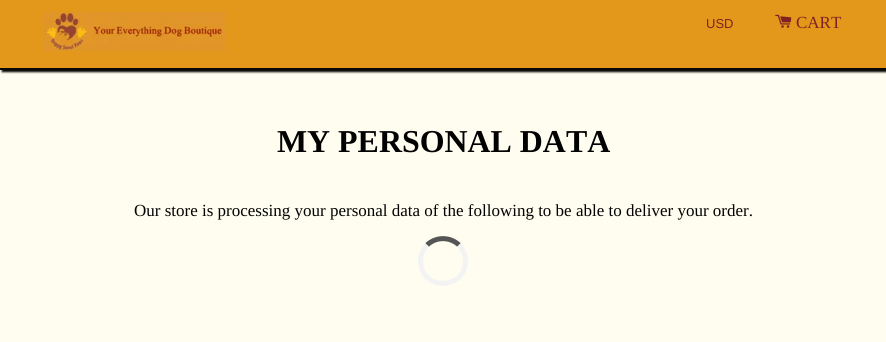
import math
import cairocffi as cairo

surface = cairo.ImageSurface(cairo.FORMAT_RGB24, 886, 342)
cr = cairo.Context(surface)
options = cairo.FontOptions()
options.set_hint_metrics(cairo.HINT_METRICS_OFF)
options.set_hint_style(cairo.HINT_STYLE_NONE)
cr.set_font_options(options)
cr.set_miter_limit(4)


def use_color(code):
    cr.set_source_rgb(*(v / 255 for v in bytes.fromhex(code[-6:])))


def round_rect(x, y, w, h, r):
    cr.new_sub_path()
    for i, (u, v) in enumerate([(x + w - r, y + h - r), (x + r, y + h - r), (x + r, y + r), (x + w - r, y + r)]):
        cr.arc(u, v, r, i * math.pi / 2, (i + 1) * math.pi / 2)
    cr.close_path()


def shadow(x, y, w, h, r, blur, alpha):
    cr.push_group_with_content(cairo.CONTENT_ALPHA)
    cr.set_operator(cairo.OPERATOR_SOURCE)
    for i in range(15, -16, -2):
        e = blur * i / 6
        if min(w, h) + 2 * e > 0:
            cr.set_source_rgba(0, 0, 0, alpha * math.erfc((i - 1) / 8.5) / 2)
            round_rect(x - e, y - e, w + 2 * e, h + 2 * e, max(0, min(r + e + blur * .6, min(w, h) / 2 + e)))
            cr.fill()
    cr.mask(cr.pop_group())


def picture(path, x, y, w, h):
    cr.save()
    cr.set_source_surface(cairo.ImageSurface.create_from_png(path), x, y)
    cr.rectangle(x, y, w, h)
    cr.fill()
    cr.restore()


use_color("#fffdef")
cr.paint()
use_color("#000000")
shadow(2, 2, 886, 70, 0, 1, 1)
use_color("#e3971b")
cr.rectangle(0, 0, 886, 68)
cr.fill()
use_color("#080808")
cr.rectangle(0, 68, 886, 2)
cr.fill()
picture("img1.png", 44, 12, 181, 39)
cr.select_font_face("Liberation Sans")
cr.set_font_size(13)
use_color("#812222")
cr.move_to(706, 28)
cr.show_text("USD")
picture("img2.png", 775, 14, 17, 14)
cr.select_font_face("Liberation Serif")
cr.set_font_size(17)
cr.move_to(796, 28)
cr.show_text("CART")
cr.select_font_face("Liberation Serif", cairo.FONT_SLANT_NORMAL, cairo.FONT_WEIGHT_BOLD)
cr.set_font_size(31.9)
use_color("#020202")
cr.move_to(277, 152)
cr.show_text("MY PERSONAL DATA")
cr.select_font_face("Liberation Serif")
cr.set_font_size(17)
cr.move_to(134, 216)
cr.show_text("Our store is processing your personal data of the following to be able to deliver your order.")
cr.new_path()
cr.move_to(427, 245)
cr.curve_to(436, 236.5, 450, 236.5, 459, 245)
use_color("#555555")
cr.set_line_width(5)
cr.stroke()
cr.new_path()
cr.move_to(459, 245)
cr.curve_to(463, 249.5, 465.5, 255, 465.5, 261)
cr.curve_to(465.5, 288, 426, 291.5, 421, 265.5)
cr.curve_to(419.5, 258, 422, 250.5, 427, 245)
use_color("#f3f3f3")
cr.stroke()
surface.write_to_png("result.png")
